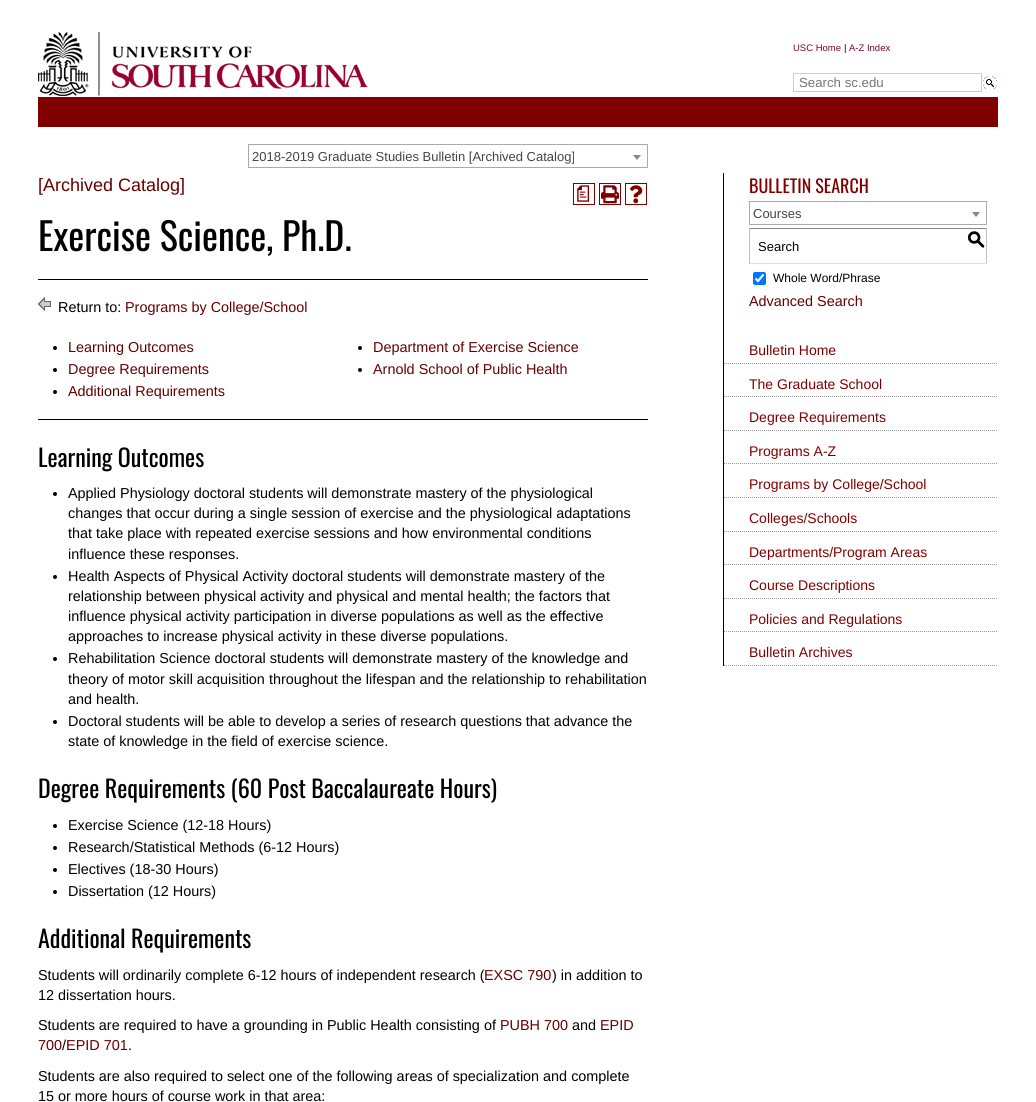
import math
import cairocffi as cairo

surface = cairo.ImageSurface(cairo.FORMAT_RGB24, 1036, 1102)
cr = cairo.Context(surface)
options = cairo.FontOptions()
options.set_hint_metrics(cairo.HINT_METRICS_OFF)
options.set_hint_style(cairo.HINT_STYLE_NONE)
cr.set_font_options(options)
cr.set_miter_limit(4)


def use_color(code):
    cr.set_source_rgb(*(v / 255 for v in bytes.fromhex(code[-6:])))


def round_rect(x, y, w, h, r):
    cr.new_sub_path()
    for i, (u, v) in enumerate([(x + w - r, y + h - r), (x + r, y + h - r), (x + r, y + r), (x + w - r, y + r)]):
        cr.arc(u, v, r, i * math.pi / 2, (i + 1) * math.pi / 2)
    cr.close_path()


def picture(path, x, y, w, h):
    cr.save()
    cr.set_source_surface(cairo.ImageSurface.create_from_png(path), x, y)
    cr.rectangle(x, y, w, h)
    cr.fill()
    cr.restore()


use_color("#ffffff")
cr.paint()
use_color("#800000")
cr.rectangle(38, 97, 960, 30)
cr.fill()
picture("img1.png", 38, 32, 330, 64)
cr.select_font_face("Liberation Sans")
cr.set_font_size(9.5)
use_color("#820232")
cr.move_to(793, 51)
cr.show_text("USC Home")
use_color("#000000")
cr.move_to(844, 51)
cr.show_text("|")
use_color("#820232")
cr.move_to(849, 51)
cr.show_text("A-Z Index")
use_color("#ffffff")
cr.rectangle(845, 53, 1, 1)
cr.fill()
cr.rectangle(793.5, 73.5, 188, 18)
use_color("#cccccc")
cr.set_line_width(1)
cr.stroke()
cr.set_font_size(13.25)
use_color("#757575")
cr.move_to(799, 87)
cr.show_text("Search sc.edu")
picture("img2.png", 983, 76, 14, 13)
cr.rectangle(248.5, 144.5, 399, 23)
use_color("#aaaaaa")
cr.stroke()
cr.set_font_size(13)
use_color("#444444")
cr.move_to(252, 161)
cr.show_text("2018-2019 Graduate Studies Bulletin [Archived Catalog]")
use_color("#888888")
cr.new_path()
cr.move_to(633, 155)
cr.line_to(641, 155)
cr.line_to(637, 160)
cr.close_path()
cr.fill()
cr.set_font_size(18)
use_color("#660000")
cr.move_to(38, 191)
cr.show_text("[Archived Catalog]")
cr.rectangle(573.5, 183.5, 21, 21)
use_color("#800000")
cr.stroke()
cr.select_font_face("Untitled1 Medium")
cr.move_to(574, 199)
cr.show_text("a")
cr.rectangle(599.5, 183.5, 21, 21)
cr.stroke()
picture("img3.png", 601, 185, 18, 19)
cr.rectangle(625.5, 183.5, 21, 21)
cr.stroke()
picture("img4.png", 630, 185, 13, 19)
cr.select_font_face("Oswald")
cr.set_font_size(38)
use_color("#000000")
cr.move_to(38, 251)
cr.show_text("Exercise Science, Ph.D.")
cr.rectangle(38, 279, 610, 1)
cr.fill()
picture("img5.png", 38, 297, 13, 14)
cr.select_font_face("Liberation Sans")
cr.set_font_size(14.4)
cr.move_to(58, 312)
cr.show_text("Return to:")
use_color("#660000")
cr.move_to(125, 312)
cr.show_text("Programs by College/School")
use_color("#000000")
cr.new_path()
cr.arc(55, 348, 2, 0, 2 * math.pi)
cr.fill()
use_color("#660000")
cr.move_to(68, 352)
cr.show_text("Learning Outcomes")
use_color("#000000")
cr.new_path()
cr.arc(55, 370, 2, 0, 2 * math.pi)
cr.fill()
use_color("#660000")
cr.move_to(68, 374)
cr.show_text("Degree Requirements")
use_color("#000000")
cr.new_path()
cr.arc(55, 392, 2, 0, 2 * math.pi)
cr.fill()
use_color("#660000")
cr.move_to(68, 396)
cr.show_text("Additional Requirements")
use_color("#000000")
cr.new_path()
cr.arc(360, 348, 2, 0, 2 * math.pi)
cr.fill()
use_color("#660000")
cr.move_to(373, 352)
cr.show_text("Department of Exercise Science")
use_color("#000000")
cr.new_path()
cr.arc(360, 370, 2, 0, 2 * math.pi)
cr.fill()
use_color("#660000")
cr.move_to(373, 374)
cr.show_text("Arnold School of Public Health")
use_color("#000000")
cr.rectangle(38, 419, 610, 1)
cr.fill()
cr.select_font_face("Oswald")
cr.set_font_size(24)
cr.move_to(38, 467)
cr.show_text("Learning Outcomes")
cr.new_path()
cr.arc(55, 494, 2, 0, 2 * math.pi)
cr.fill()
cr.select_font_face("Liberation Sans")
cr.set_font_size(14.4)
cr.move_to(68, 498)
cr.show_text("Applied Physiology doctoral students will demonstrate mastery of the physiological")
cr.move_to(68, 518)
cr.show_text("changes that occur during a single session of exercise and the physiological adaptations")
cr.move_to(68, 538)
cr.show_text("that take place with repeated exercise sessions and how environmental conditions")
cr.move_to(68, 559)
cr.show_text("influence these responses.")
cr.new_path()
cr.arc(55, 577, 2, 0, 2 * math.pi)
cr.fill()
cr.move_to(68, 581)
cr.show_text("Health Aspects of Physical Activity doctoral students will demonstrate mastery of the")
cr.move_to(68, 601)
cr.show_text("relationship between physical activity and physical and mental health; the factors that")
cr.move_to(68, 621)
cr.show_text("influence physical activity participation in diverse populations as well as the effective")
cr.move_to(68, 641)
cr.show_text("approaches to increase physical activity in these diverse populations.")
cr.new_path()
cr.arc(55, 659, 2, 0, 2 * math.pi)
cr.fill()
cr.move_to(68, 663)
cr.show_text("Rehabilitation Science doctoral students will demonstrate mastery of the knowledge and")
cr.move_to(68, 684)
cr.show_text("theory of motor skill acquisition throughout the lifespan and the relationship to rehabilitation")
cr.move_to(68, 704)
cr.show_text("and health.")
cr.new_path()
cr.arc(55, 722, 2, 0, 2 * math.pi)
cr.fill()
cr.move_to(68, 726)
cr.show_text("Doctoral students will be able to develop a series of research questions that advance the")
cr.move_to(68, 746)
cr.show_text("state of knowledge in the field of exercise science.")
cr.select_font_face("Oswald")
cr.set_font_size(24)
cr.move_to(38, 798)
cr.show_text("Degree Requirements (60 Post Baccalaureate Hours)")
cr.new_path()
cr.arc(55, 826, 2, 0, 2 * math.pi)
cr.fill()
cr.select_font_face("Liberation Sans")
cr.set_font_size(14.4)
cr.move_to(68, 830)
cr.show_text("Exercise Science (12-18 Hours)")
cr.new_path()
cr.arc(55, 848, 2, 0, 2 * math.pi)
cr.fill()
cr.move_to(68, 852)
cr.show_text("Research/Statistical Methods (6-12 Hours)")
cr.new_path()
cr.arc(55, 870, 2, 0, 2 * math.pi)
cr.fill()
cr.move_to(68, 874)
cr.show_text("Electives (18-30 Hours)")
cr.new_path()
cr.arc(55, 892, 2, 0, 2 * math.pi)
cr.fill()
cr.move_to(68, 896)
cr.show_text("Dissertation (12 Hours)")
cr.select_font_face("Oswald")
cr.set_font_size(24)
cr.move_to(38, 948)
cr.show_text("Additional Requirements")
cr.select_font_face("Liberation Sans")
cr.set_font_size(14.4)
cr.move_to(38, 980)
cr.show_text("Students will ordinarily complete 6-12 hours of independent research (")
use_color("#660000")
cr.move_to(484, 980)
cr.show_text("EXSC 790")
use_color("#000000")
cr.move_to(552, 980)
cr.show_text(") in addition to")
cr.move_to(38, 1000)
cr.show_text("12 dissertation hours.")
cr.move_to(38, 1030)
cr.show_text("Students are required to have a grounding in Public Health consisting of")
use_color("#660000")
cr.move_to(500, 1030)
cr.show_text("PUBH 700")
use_color("#000000")
cr.move_to(572, 1030)
cr.show_text("and")
use_color("#660000")
cr.move_to(600, 1030)
cr.show_text("EPID")
cr.move_to(38, 1050)
cr.show_text("700 EPID 701")
use_color("#000000")
cr.move_to(62, 1050)
cr.show_text("/")
cr.move_to(128, 1050)
cr.show_text(".")
cr.move_to(38, 1081)
cr.show_text("Students are also required to select one of the following areas of specialization and complete")
cr.move_to(38, 1101)
cr.show_text("15 or more hours of course work in that area:")
cr.rectangle(723, 173, 1, 493)
cr.fill()
cr.select_font_face("Oswald")
cr.set_font_size(18)
use_color("#800000")
cr.move_to(749, 193)
cr.show_text("BULLETIN SEARCH")
cr.rectangle(749.5, 201.5, 237, 23)
use_color("#aaaaaa")
cr.stroke()
cr.select_font_face("Liberation Sans")
cr.set_font_size(13)
use_color("#444444")
cr.move_to(753, 218)
cr.show_text("Courses")
use_color("#888888")
cr.new_path()
cr.move_to(972, 212)
cr.line_to(980, 212)
cr.line_to(976, 217)
cr.close_path()
cr.fill()
use_color("#848484")
cr.rectangle(749, 228, 238, 1)
cr.fill()
use_color("#c1c1c1")
cr.rectangle(986, 228, 1, 36)
cr.fill()
use_color("#e1e1e1")
cr.rectangle(749, 263, 238, 1)
cr.fill()
use_color("#c1c1c1")
cr.rectangle(749, 228, 1, 36)
cr.fill()
use_color("#000000")
cr.move_to(758, 251)
cr.show_text("Search")
cr.select_font_face("Untitled1 Medium")
cr.set_font_size(18)
cr.move_to(967, 245)
cr.show_text("S")
use_color("#0075ff")
round_rect(753, 272, 13, 13, 2)
cr.fill()
cr.new_path()
cr.move_to(755.5, 278.5)
cr.line_to(758, 281)
cr.line_to(763.5, 274.5)
use_color("#ffffff")
cr.set_line_width(2.1)
cr.stroke()
cr.select_font_face("Liberation Sans")
cr.set_font_size(12)
use_color("#000000")
cr.move_to(773, 282)
cr.show_text("Whole Word/Phrase")
cr.set_font_size(14.4)
use_color("#660000")
cr.move_to(749, 306)
cr.show_text("Advanced Search")
cr.new_path()
cr.move_to(724, 363.5)
cr.line_to(998, 363.5)
use_color("#999999")
cr.set_line_width(1)
cr.set_dash([1, 1])
cr.stroke()
cr.set_font_size(14)
use_color("#800000")
cr.move_to(749, 355)
cr.show_text("Bulletin Home")
cr.new_path()
cr.move_to(724, 396.5)
cr.line_to(998, 396.5)
use_color("#999999")
cr.stroke()
use_color("#800000")
cr.move_to(749, 389)
cr.show_text("The Graduate School")
cr.new_path()
cr.move_to(724, 430.5)
cr.line_to(998, 430.5)
use_color("#999999")
cr.stroke()
use_color("#800000")
cr.move_to(749, 422)
cr.show_text("Degree Requirements")
cr.new_path()
cr.move_to(724, 463.5)
cr.line_to(998, 463.5)
use_color("#999999")
cr.stroke()
use_color("#800000")
cr.move_to(749, 456)
cr.show_text("Programs A-Z")
cr.new_path()
cr.move_to(724, 497.5)
cr.line_to(998, 497.5)
use_color("#999999")
cr.stroke()
use_color("#800000")
cr.move_to(749, 489)
cr.show_text("Programs by College/School")
cr.new_path()
cr.move_to(724, 531.5)
cr.line_to(998, 531.5)
use_color("#999999")
cr.stroke()
use_color("#800000")
cr.move_to(749, 523)
cr.show_text("Colleges/Schools")
cr.new_path()
cr.move_to(724, 564.5)
cr.line_to(998, 564.5)
use_color("#999999")
cr.stroke()
use_color("#800000")
cr.move_to(749, 557)
cr.show_text("Departments/Program Areas")
cr.new_path()
cr.move_to(724, 598.5)
cr.line_to(998, 598.5)
use_color("#999999")
cr.stroke()
use_color("#800000")
cr.move_to(749, 590)
cr.show_text("Course Descriptions")
cr.new_path()
cr.move_to(724, 631.5)
cr.line_to(998, 631.5)
use_color("#999999")
cr.stroke()
use_color("#800000")
cr.move_to(749, 624)
cr.show_text("Policies and Regulations")
cr.new_path()
cr.move_to(724, 665.5)
cr.line_to(998, 665.5)
use_color("#999999")
cr.stroke()
use_color("#800000")
cr.move_to(749, 657)
cr.show_text("Bulletin Archives")
surface.write_to_png("result.png")
